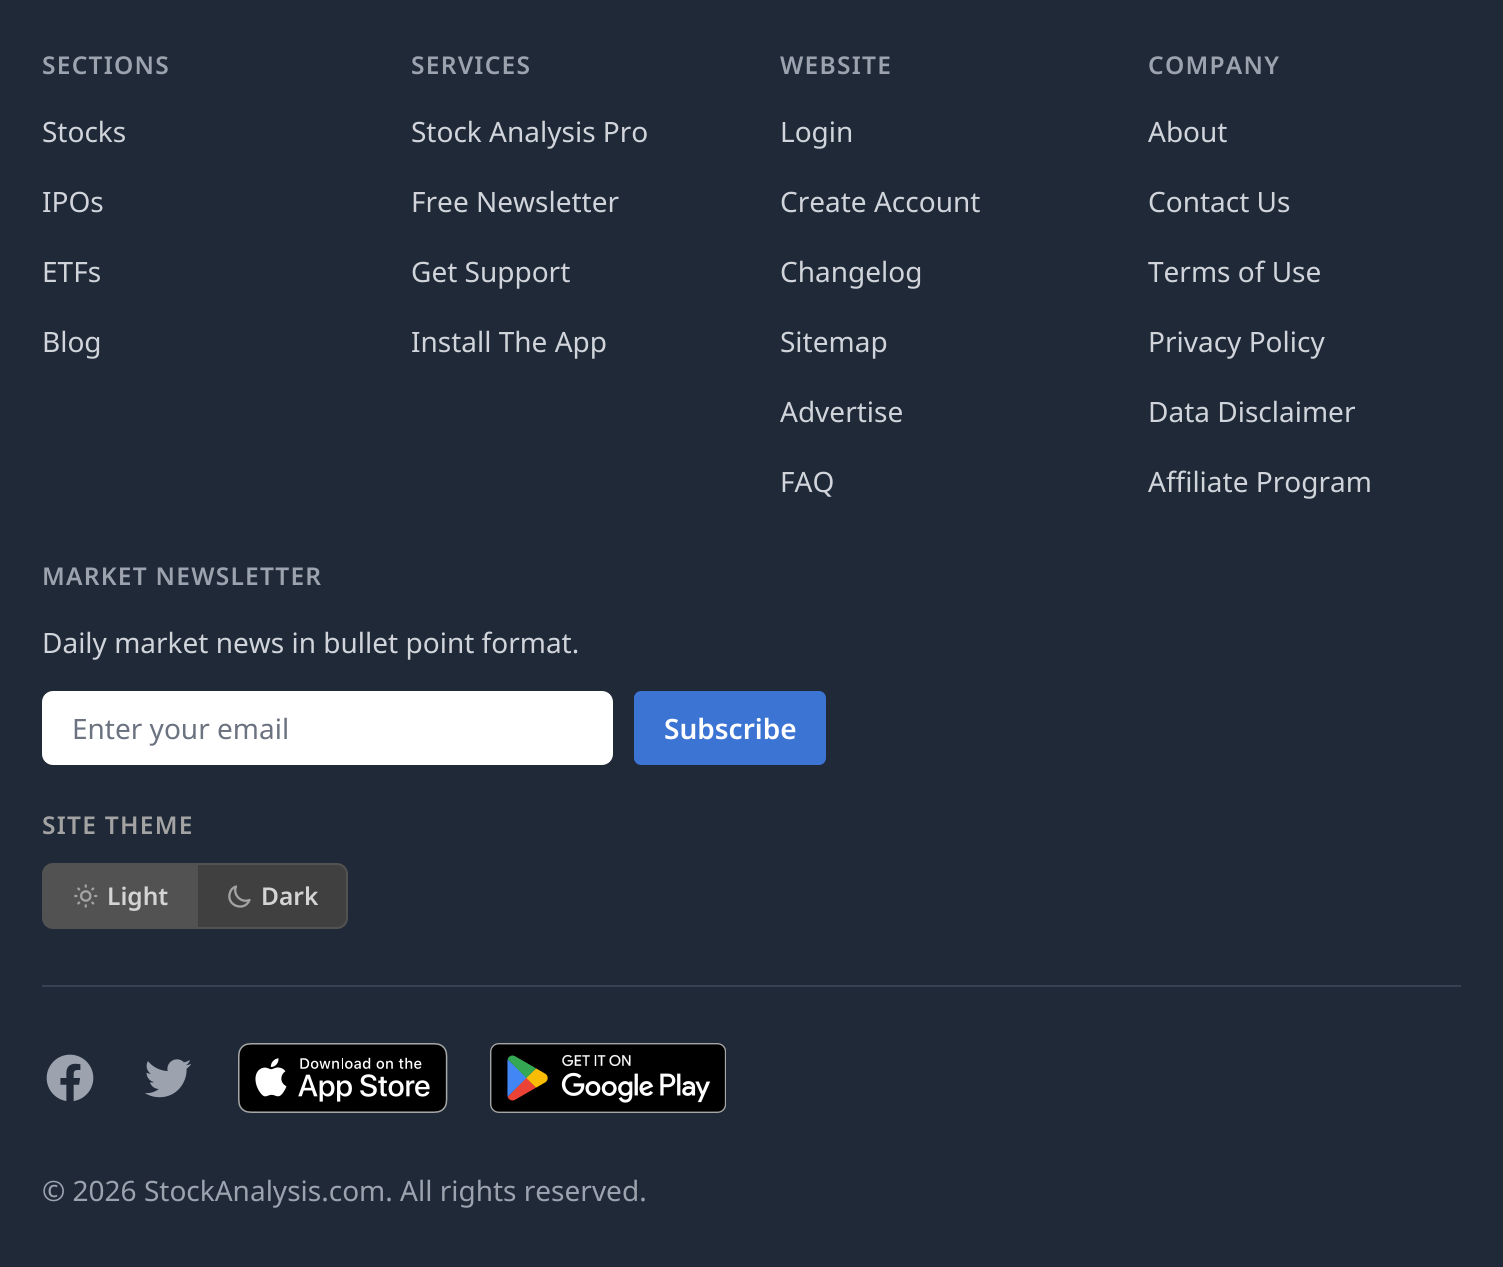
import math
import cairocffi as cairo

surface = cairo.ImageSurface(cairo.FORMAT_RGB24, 1503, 1267)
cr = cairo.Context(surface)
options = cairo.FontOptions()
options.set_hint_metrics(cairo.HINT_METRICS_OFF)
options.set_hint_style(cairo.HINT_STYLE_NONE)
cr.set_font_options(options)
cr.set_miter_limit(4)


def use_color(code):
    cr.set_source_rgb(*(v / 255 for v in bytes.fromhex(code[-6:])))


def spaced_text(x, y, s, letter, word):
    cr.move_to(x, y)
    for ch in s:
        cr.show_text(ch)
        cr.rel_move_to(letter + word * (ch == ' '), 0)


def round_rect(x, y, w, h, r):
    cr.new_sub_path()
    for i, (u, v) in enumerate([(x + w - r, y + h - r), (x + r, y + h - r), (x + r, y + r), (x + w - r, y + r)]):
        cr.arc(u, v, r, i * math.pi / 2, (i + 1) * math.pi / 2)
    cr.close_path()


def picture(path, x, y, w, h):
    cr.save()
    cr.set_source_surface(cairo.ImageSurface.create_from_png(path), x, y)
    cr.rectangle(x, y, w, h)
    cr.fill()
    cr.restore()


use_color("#1f2937")
cr.paint()
cr.select_font_face("Noto Sans SemiBold")
cr.set_font_size(24.5)
use_color("#9ca3af")
spaced_text(42, 74, "SECTIONS", 1.25, 0)
cr.select_font_face("Noto Sans")
cr.set_font_size(28)
use_color("#d1d5db")
cr.move_to(42, 142)
cr.show_text("Stocks")
cr.move_to(42, 212)
cr.show_text("IPOs")
cr.move_to(42, 282)
cr.show_text("ETFs")
cr.move_to(42, 352)
cr.show_text("Blog")
cr.select_font_face("Noto Sans SemiBold")
cr.set_font_size(24.5)
use_color("#9ca3af")
spaced_text(411, 74, "SERVICES", 1.25, 0)
cr.select_font_face("Noto Sans")
cr.set_font_size(28)
use_color("#d1d5db")
cr.move_to(411, 142)
cr.show_text("Stock Analysis Pro")
cr.move_to(411, 212)
cr.show_text("Free Newsletter")
cr.move_to(411, 282)
cr.show_text("Get Support")
cr.move_to(411, 352)
cr.show_text("Install The App")
cr.select_font_face("Noto Sans SemiBold")
cr.set_font_size(24.5)
use_color("#9ca3af")
spaced_text(780, 74, "WEBSITE", 1.25, 0)
cr.select_font_face("Noto Sans")
cr.set_font_size(28)
use_color("#d1d5db")
cr.move_to(780, 142)
cr.show_text("Login")
cr.move_to(780, 212)
cr.show_text("Create Account")
cr.move_to(780, 282)
cr.show_text("Changelog")
cr.move_to(780, 352)
cr.show_text("Sitemap")
cr.move_to(780, 422)
cr.show_text("Advertise")
cr.move_to(780, 492)
cr.show_text("FAQ")
cr.select_font_face("Noto Sans SemiBold")
cr.set_font_size(24.5)
use_color("#9ca3af")
spaced_text(1148, 74, "COMPANY", 1.25, 0)
cr.select_font_face("Noto Sans")
cr.set_font_size(28)
use_color("#d1d5db")
cr.move_to(1148, 142)
cr.show_text("About")
cr.move_to(1148, 212)
cr.show_text("Contact Us")
cr.move_to(1148, 282)
cr.show_text("Terms of Use")
cr.move_to(1148, 352)
cr.show_text("Privacy Policy")
cr.move_to(1148, 422)
cr.show_text("Data Disclaimer")
cr.move_to(1148, 492)
cr.show_text("Affiliate Program")
cr.select_font_face("Noto Sans SemiBold")
cr.set_font_size(24.5)
use_color("#9ca3af")
spaced_text(42, 585, "MARKET NEWSLETTER", 1.25, 0)
cr.select_font_face("Noto Sans")
cr.set_font_size(28)
use_color("#d1d5db")
cr.move_to(42, 653)
cr.show_text("Daily market news in bullet point format.")
use_color("#ffffff")
round_rect(42, 691, 571, 74, 11)
cr.fill()
use_color("#6b7280")
cr.move_to(72, 739)
cr.show_text("Enter your email")
use_color("#3c74d4")
round_rect(634, 691, 192, 74, 7)
cr.fill()
cr.select_font_face("Noto Sans SemiBold")
use_color("#ffffff")
cr.move_to(664, 739)
cr.show_text("Subscribe")
cr.set_font_size(24.5)
use_color("#a3a3a3")
spaced_text(42, 834, "SITE THEME", 1.25, 0)
use_color("#525252")
cr.new_path()
cr.move_to(53, 864)
cr.line_to(197, 864)
cr.line_to(197, 928)
cr.line_to(53, 928)
cr.curve_to(47.5, 928, 43, 923.5, 43, 918)
cr.line_to(43, 874)
cr.curve_to(43, 868.5, 47.5, 864, 53, 864)
cr.close_path()
cr.fill_preserve()
cr.stroke()
picture("img1.png", 74, 884, 24, 24)
use_color("#d4d4d4")
cr.move_to(107, 905)
cr.show_text("Light")
use_color("#404040")
cr.new_path()
cr.move_to(197, 864)
cr.line_to(337, 864)
cr.curve_to(342.5, 864, 347, 868.5, 347, 874)
cr.line_to(347, 918)
cr.curve_to(347, 923.5, 342.5, 928, 337, 928)
cr.line_to(197, 928)
cr.close_path()
cr.fill_preserve()
use_color("#525252")
cr.stroke()
cr.new_path()
cr.move_to(249.5, 900)
cr.curve_to(241, 903.5, 232.5, 894.5, 236, 886.5)
cr.curve_to(233, 887.5, 231, 889.5, 230, 892.5)
cr.curve_to(225.5, 905.5, 244.5, 912.5, 249.5, 900)
cr.close_path()
use_color("#a3a3a3")
cr.set_line_width(2.3)
cr.set_line_cap(cairo.LINE_CAP_ROUND)
cr.set_line_join(cairo.LINE_JOIN_ROUND)
cr.stroke()
use_color("#d4d4d4")
cr.move_to(261, 905)
cr.show_text("Dark")
use_color("#374151")
cr.rectangle(42, 985, 1419, 2)
cr.fill()
picture("img2.png", 46, 1054, 48, 47)
picture("img3.png", 145, 1059, 46, 39)
picture("img4.png", 238, 1043, 210, 70)
picture("img5.png", 490, 1043, 236, 70)
cr.select_font_face("Noto Sans")
cr.set_font_size(28)
use_color("#9ca3af")
cr.move_to(42, 1201)
cr.show_text("© 2026 StockAnalysis.com. All rights reserved.")
surface.write_to_png("result.png")
